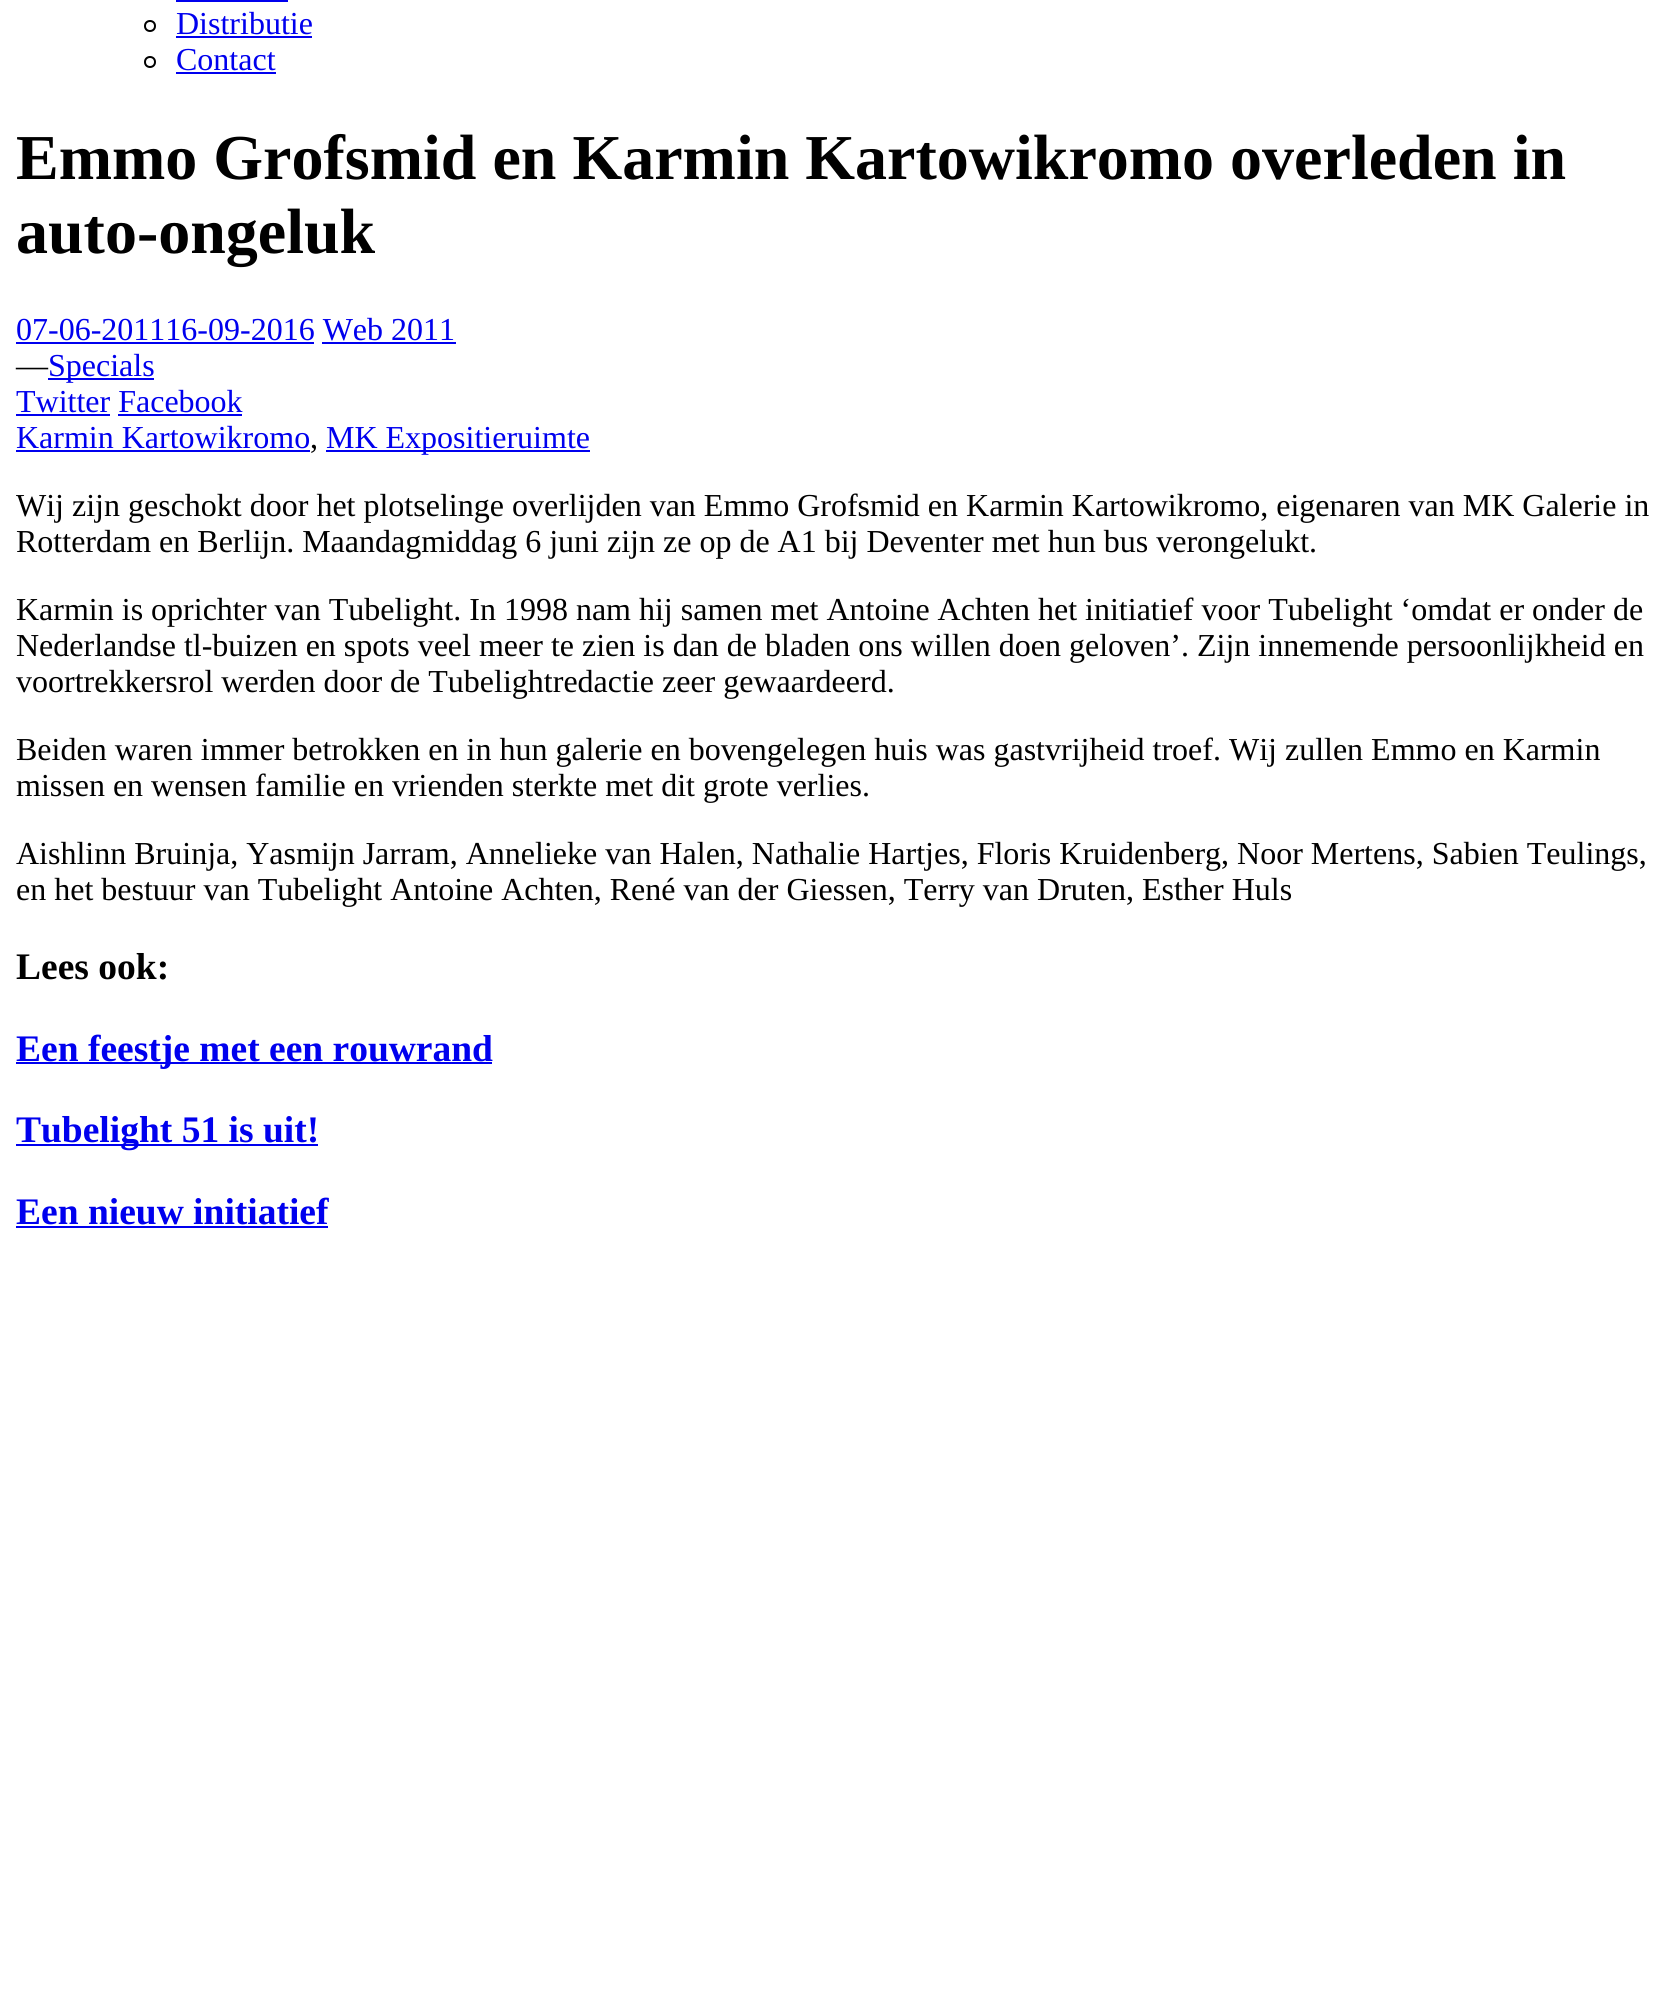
import math
import cairocffi as cairo

surface = cairo.ImageSurface(cairo.FORMAT_RGB24, 1679, 2007)
cr = cairo.Context(surface)
options = cairo.FontOptions()
options.set_hint_metrics(cairo.HINT_METRICS_OFF)
options.set_hint_style(cairo.HINT_STYLE_NONE)
cr.set_font_options(options)
cr.set_miter_limit(4)


def use_color(code):
    cr.set_source_rgb(*(v / 255 for v in bytes.fromhex(code[-6:])))


use_color("#ffffff")
cr.paint()
use_color("#0000ee")
cr.rectangle(176, 0, 112, 2)
cr.fill()
cr.arc(150, 26, 5, 0, 2 * math.pi)
use_color("#000000")
cr.stroke()
cr.select_font_face("Liberation Serif")
cr.set_font_size(32)
use_color("#0000ee")
cr.move_to(176, 34)
cr.show_text("Distributie")
cr.rectangle(176, 36, 136, 2)
cr.fill()
cr.arc(150, 62, 5, 0, 2 * math.pi)
use_color("#000000")
cr.stroke()
use_color("#0000ee")
cr.move_to(176, 70)
cr.show_text("Contact")
cr.rectangle(176, 72, 100, 2)
cr.fill()
cr.select_font_face("Liberation Serif", cairo.FONT_SLANT_NORMAL, cairo.FONT_WEIGHT_BOLD)
cr.set_font_size(64)
use_color("#000000")
cr.move_to(16, 179)
cr.show_text("Emmo Grofsmid en Karmin Kartowikromo overleden in")
cr.move_to(16, 253)
cr.show_text("auto-ongeluk")
cr.select_font_face("Liberation Serif")
cr.set_font_size(32)
use_color("#0000ee")
cr.move_to(16, 340)
cr.show_text("07-06-201116-09-2016 Web 2011")
cr.rectangle(16, 342, 298, 2)
cr.fill()
cr.rectangle(322, 342, 134, 2)
cr.fill()
use_color("#000000")
cr.move_to(16, 376)
cr.show_text("—")
use_color("#0000ee")
cr.rectangle(48, 378, 106, 2)
cr.fill()
cr.move_to(48, 376)
cr.show_text("Specials")
cr.move_to(16, 412)
cr.show_text("Twitter Facebook")
cr.rectangle(16, 414, 94, 2)
cr.fill()
cr.rectangle(118, 414, 124, 2)
cr.fill()
cr.move_to(16, 448)
cr.show_text("Karmin Kartowikromo")
cr.rectangle(16, 450, 294, 2)
cr.fill()
use_color("#000000")
cr.move_to(310, 448)
cr.show_text(",")
use_color("#0000ee")
cr.rectangle(326, 450, 264, 2)
cr.fill()
cr.move_to(326, 448)
cr.show_text("MK Expositieruimte")
use_color("#000000")
cr.move_to(16, 516)
cr.show_text("Wij zijn geschokt door het plotselinge overlijden van Emmo Grofsmid en Karmin Kartowikromo, eigenaren van MK Galerie in")
cr.move_to(16, 552)
cr.show_text("Rotterdam en Berlijn. Maandagmiddag 6 juni zijn ze op de A1 bij Deventer met hun bus verongelukt.")
cr.move_to(16, 620)
cr.show_text("Karmin is oprichter van Tubelight. In 1998 nam hij samen met Antoine Achten het initiatief voor Tubelight ‘omdat er onder de")
cr.move_to(16, 656)
cr.show_text("Nederlandse tl-buizen en spots veel meer te zien is dan de bladen ons willen doen geloven’. Zijn innemende persoonlijkheid en")
cr.move_to(16, 692)
cr.show_text("voortrekkersrol werden door de Tubelightredactie zeer gewaardeerd.")
cr.move_to(16, 760)
cr.show_text("Beiden waren immer betrokken en in hun galerie en bovengelegen huis was gastvrijheid troef. Wij zullen Emmo en Karmin")
cr.move_to(16, 796)
cr.show_text("missen en wensen familie en vrienden sterkte met dit grote verlies.")
cr.move_to(16, 864)
cr.show_text("Aishlinn Bruinja, Yasmijn Jarram, Annelieke van Halen, Nathalie Hartjes, Floris Kruidenberg, Noor Mertens, Sabien Teulings,")
cr.move_to(16, 900)
cr.show_text("en het bestuur van Tubelight Antoine Achten, René van der Giessen, Terry van Druten, Esther Huls")
cr.select_font_face("Liberation Serif", cairo.FONT_SLANT_NORMAL, cairo.FONT_WEIGHT_BOLD)
cr.set_font_size(37.5)
cr.move_to(16, 979)
cr.show_text("Lees ook:")
use_color("#0000ee")
cr.rectangle(16, 1062, 476, 2)
cr.fill()
cr.move_to(16, 1061)
cr.show_text("Een feestje met een rouwrand")
cr.rectangle(16, 1144, 302, 2)
cr.fill()
cr.move_to(16, 1142)
cr.show_text("Tubelight 51 is uit!")
cr.move_to(16, 1224)
cr.show_text("Een nieuw initiatief")
cr.rectangle(16, 1226, 312, 2)
cr.fill()
surface.write_to_png("result.png")
